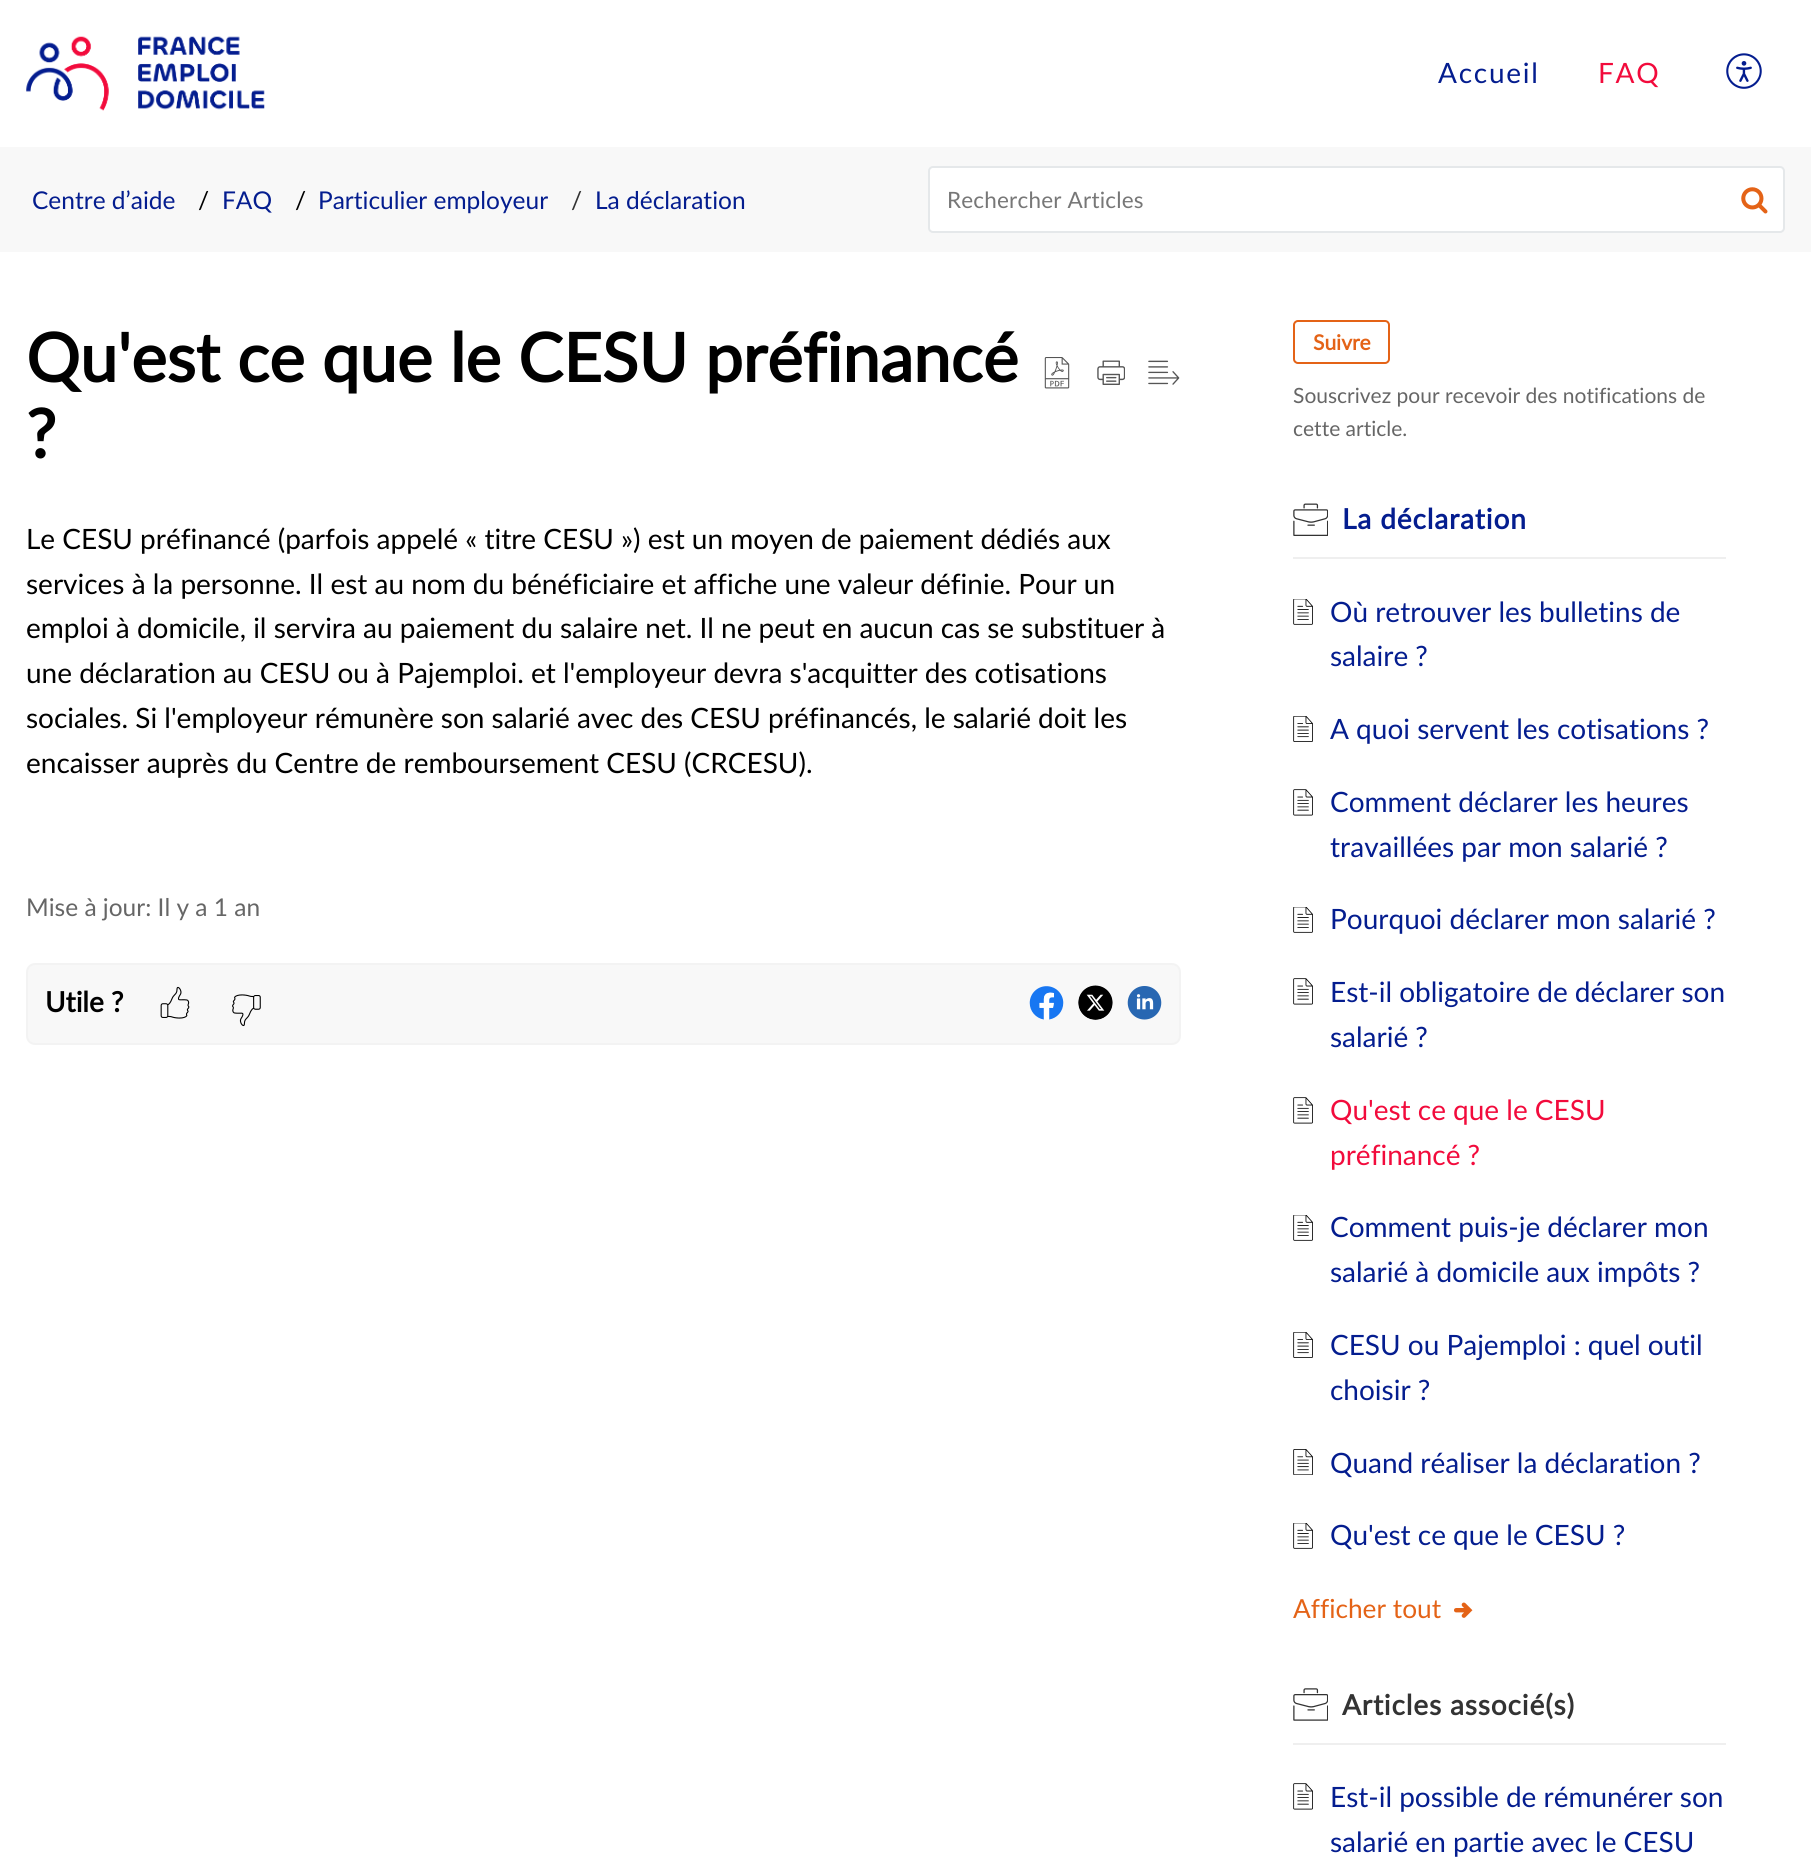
import math
import cairocffi as cairo

surface = cairo.ImageSurface(cairo.FORMAT_RGB24, 1811, 1875)
cr = cairo.Context(surface)
options = cairo.FontOptions()
options.set_hint_metrics(cairo.HINT_METRICS_OFF)
options.set_hint_style(cairo.HINT_STYLE_NONE)
cr.set_font_options(options)
cr.set_miter_limit(4)


def use_color(code):
    cr.set_source_rgb(*(v / 255 for v in bytes.fromhex(code[-6:])))


def spaced_text(x, y, s, letter, word):
    cr.move_to(x, y)
    for ch in s:
        cr.show_text(ch)
        cr.rel_move_to(letter + word * (ch == ' '), 0)


def round_rect(x, y, w, h, r):
    cr.new_sub_path()
    for i, (u, v) in enumerate([(x + w - r, y + h - r), (x + r, y + h - r), (x + r, y + r), (x + w - r, y + r)]):
        cr.arc(u, v, r, i * math.pi / 2, (i + 1) * math.pi / 2)
    cr.close_path()


def picture(path, x, y, w, h):
    cr.save()
    cr.set_source_surface(cairo.ImageSurface.create_from_png(path), x, y)
    cr.rectangle(x, y, w, h)
    cr.fill()
    cr.restore()


use_color("#ffffff")
cr.paint()
picture("img1.png", 26, 36, 239, 75)
cr.select_font_face("Lato")
cr.set_font_size(28)
use_color("#041d8f")
spaced_text(1438, 83, "Accueil", 1.75, 0)
use_color("#f20b3c")
spaced_text(1598, 83, "FAQ", 1.75, 0)
picture("img2.png", 1726, 53, 36, 36)
use_color("#f8f8f8")
cr.rectangle(0, 147, 1811, 105)
cr.fill()
cr.set_font_size(24.5)
use_color("#041d8f")
cr.move_to(32, 209)
cr.show_text("Centre d’aide")
use_color("#000000")
cr.move_to(198, 209)
cr.show_text("/")
use_color("#041d8f")
cr.move_to(222, 209)
cr.show_text("FAQ")
use_color("#000000")
cr.move_to(295, 209)
cr.show_text("/")
use_color("#041d8f")
cr.move_to(318, 209)
cr.show_text("Particulier employeur")
use_color("#333333")
cr.move_to(571, 209)
cr.show_text("/")
use_color("#041d8f")
cr.move_to(595, 209)
cr.show_text("La déclaration")
use_color("#ffffff")
round_rect(929, 167, 855, 65, 4)
cr.fill_preserve()
use_color("#e5e8ea")
cr.stroke()
cr.set_font_size(22.5)
use_color("#777777")
spaced_text(947, 208, "Rechercher Articles", 0.2, 0)
picture("img3.png", 1741, 187, 27, 27)
cr.select_font_face("Lato", cairo.FONT_SLANT_NORMAL, cairo.FONT_WEIGHT_BOLD)
cr.set_font_size(67.25)
use_color("#000000")
cr.move_to(26, 382)
cr.show_text("Qu'est ce que le CESU préfinancé")
cr.move_to(26, 458)
cr.show_text("?")
picture("img4.png", 1044, 357, 26, 32)
picture("img5.png", 1097, 360, 28, 25)
picture("img6.png", 1148, 360, 32, 25)
cr.select_font_face("Lato")
cr.set_font_size(28)
cr.move_to(26, 549)
cr.show_text("Le CESU préfinancé (parfois appelé « titre CESU ») est un moyen de paiement dédiés aux")
cr.move_to(26, 594)
cr.show_text("services à la personne. Il est au nom du bénéficiaire et affiche une valeur définie. Pour un")
cr.move_to(26, 638)
cr.show_text("emploi à domicile, il servira au paiement du salaire net. Il ne peut en aucun cas se substituer à")
cr.move_to(26, 683)
cr.show_text("une déclaration au CESU ou à Pajemploi. et l'employeur devra s'acquitter des cotisations")
cr.move_to(26, 728)
cr.show_text("sociales. Si l'employeur rémunère son salarié avec des CESU préfinancés, le salarié doit les")
cr.move_to(26, 773)
cr.show_text("encaisser auprès du Centre de remboursement CESU (CRCESU).")
cr.set_font_size(24.5)
use_color("#666666")
cr.move_to(26, 916)
cr.show_text("Mise à jour: Il y a 1 an")
use_color("#f8f8f8")
round_rect(27, 964, 1153, 80, 8)
cr.fill_preserve()
use_color("#f3f3f3")
cr.stroke()
cr.select_font_face("Lato", cairo.FONT_SLANT_NORMAL, cairo.FONT_WEIGHT_BOLD)
cr.set_font_size(28)
use_color("#000000")
cr.move_to(45, 1012)
cr.show_text("Utile ?")
picture("img7.png", 160, 986, 30, 33)
picture("img8.png", 232, 994, 29, 33)
picture("img9.png", 1029, 986, 35, 34)
picture("img10.png", 1078, 985, 35, 35)
picture("img11.png", 1127, 986, 35, 34)
round_rect(1294, 321, 95, 42, 4)
use_color("#e46317")
cr.stroke()
cr.set_font_size(21)
cr.move_to(1313, 350)
cr.show_text("Suivre")
cr.select_font_face("Lato")
use_color("#666666")
cr.move_to(1293, 403)
cr.show_text("Souscrivez pour recevoir des notifications de")
cr.move_to(1293, 436)
cr.show_text("cette article.")
use_color("#efefef")
cr.rectangle(1293, 557, 433, 2)
cr.fill()
picture("img12.png", 1293, 503, 35, 33)
cr.select_font_face("Lato", cairo.FONT_SLANT_NORMAL, cairo.FONT_WEIGHT_BOLD)
cr.set_font_size(28)
use_color("#041d8f")
spaced_text(1342, 529, "La déclaration", 0.9, 0)
picture("img13.png", 1293, 599, 20, 26)
cr.select_font_face("Lato")
cr.move_to(1330, 622)
cr.show_text("Où retrouver les bulletins de")
cr.move_to(1330, 666)
cr.show_text("salaire ?")
picture("img14.png", 1293, 716, 20, 26)
cr.move_to(1330, 739)
cr.show_text("A quoi servent les cotisations ?")
picture("img15.png", 1293, 789, 20, 27)
cr.move_to(1330, 812)
cr.show_text("Comment déclarer les heures")
cr.move_to(1330, 857)
cr.show_text("travaillées par mon salarié ?")
picture("img13.png", 1293, 907, 20, 26)
cr.move_to(1330, 929)
cr.show_text("Pourquoi déclarer mon salarié ?")
picture("img15.png", 1293, 978, 20, 27)
cr.move_to(1330, 1002)
cr.show_text("Est-il obligatoire de déclarer son")
cr.move_to(1330, 1047)
cr.show_text("salarié ?")
picture("img15.png", 1293, 1097, 20, 27)
use_color("#f20b3c")
cr.move_to(1330, 1120)
cr.show_text("Qu'est ce que le CESU")
cr.move_to(1330, 1165)
cr.show_text("préfinancé ?")
picture("img13.png", 1293, 1215, 20, 26)
use_color("#041d8f")
cr.move_to(1330, 1237)
cr.show_text("Comment puis-je déclarer mon")
cr.move_to(1330, 1282)
cr.show_text("salarié à domicile aux impôts ?")
picture("img14.png", 1293, 1332, 20, 26)
cr.move_to(1330, 1355)
cr.show_text("CESU ou Pajemploi : quel outil")
cr.move_to(1330, 1400)
cr.show_text("choisir ?")
picture("img16.png", 1293, 1449, 20, 26)
cr.move_to(1330, 1473)
cr.show_text("Quand réaliser la déclaration ?")
picture("img13.png", 1293, 1523, 20, 26)
cr.move_to(1330, 1545)
cr.show_text("Qu'est ce que le CESU ?")
cr.set_font_size(26.25)
use_color("#e46317")
cr.move_to(1293, 1618)
cr.show_text("Afficher tout")
picture("img17.png", 1454, 1602, 19, 16)
use_color("#efefef")
cr.rectangle(1293, 1743, 433, 2)
cr.fill()
picture("img18.png", 1293, 1688, 35, 33)
cr.select_font_face("Lato", cairo.FONT_SLANT_NORMAL, cairo.FONT_WEIGHT_BOLD)
cr.set_font_size(28)
use_color("#333333")
spaced_text(1342, 1715, "Articles associé(s)", 0.9, 0)
picture("img15.png", 1293, 1783, 20, 27)
cr.select_font_face("Lato")
use_color("#041d8f")
cr.move_to(1330, 1807)
cr.show_text("Est-il possible de rémunérer son")
cr.move_to(1330, 1852)
cr.show_text("salarié en partie avec le CESU")
surface.write_to_png("result.png")
